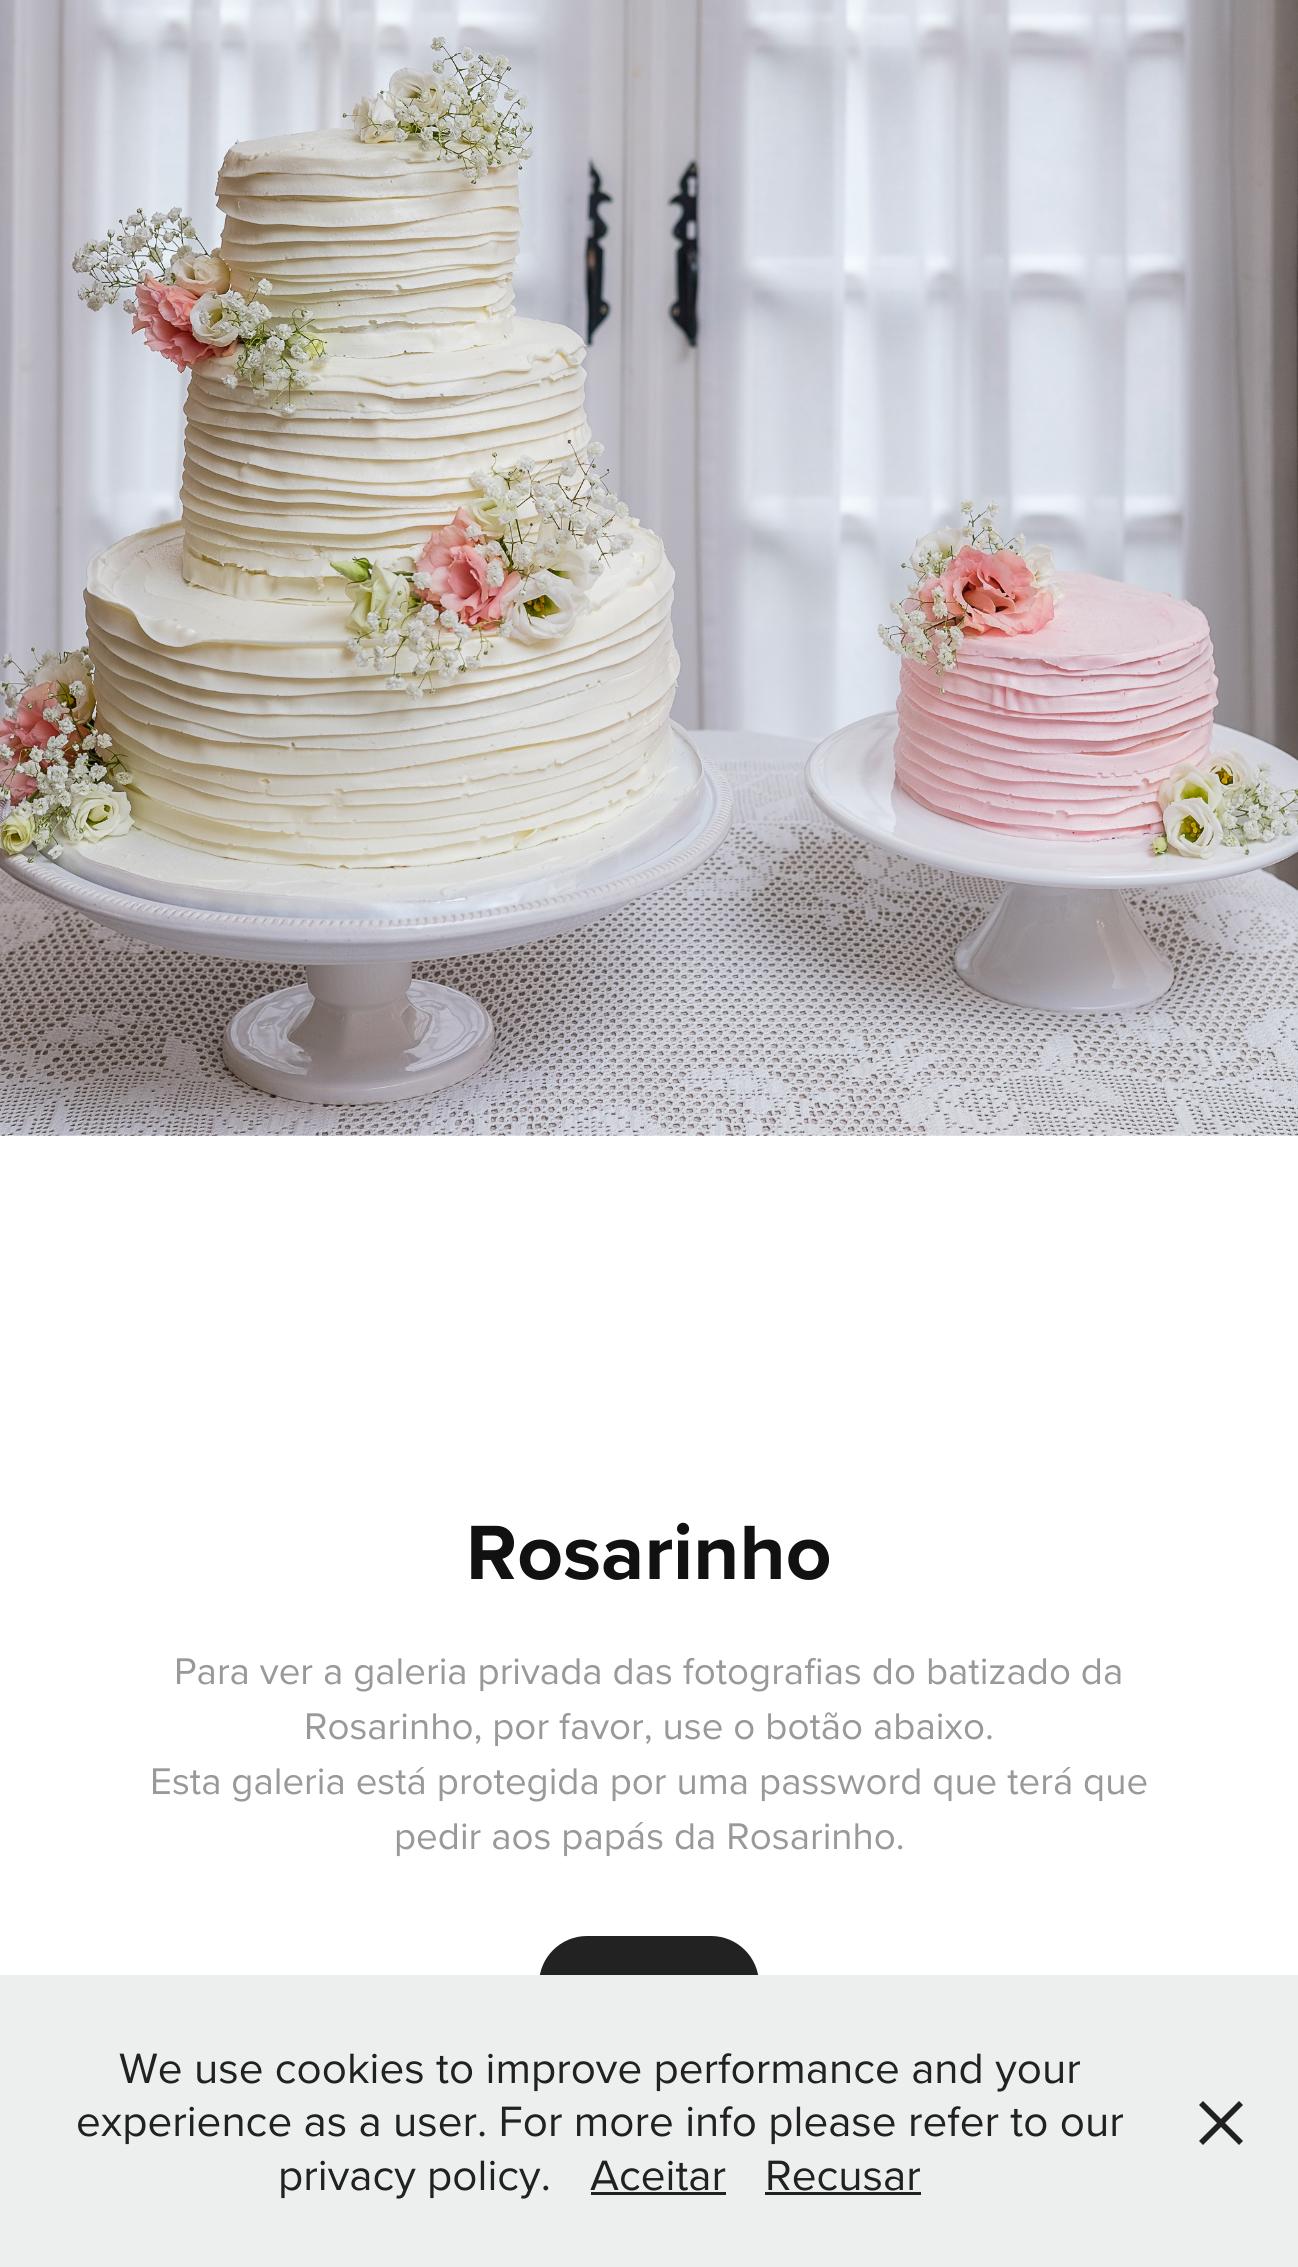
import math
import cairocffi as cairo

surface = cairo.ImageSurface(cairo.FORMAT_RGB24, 1298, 2267)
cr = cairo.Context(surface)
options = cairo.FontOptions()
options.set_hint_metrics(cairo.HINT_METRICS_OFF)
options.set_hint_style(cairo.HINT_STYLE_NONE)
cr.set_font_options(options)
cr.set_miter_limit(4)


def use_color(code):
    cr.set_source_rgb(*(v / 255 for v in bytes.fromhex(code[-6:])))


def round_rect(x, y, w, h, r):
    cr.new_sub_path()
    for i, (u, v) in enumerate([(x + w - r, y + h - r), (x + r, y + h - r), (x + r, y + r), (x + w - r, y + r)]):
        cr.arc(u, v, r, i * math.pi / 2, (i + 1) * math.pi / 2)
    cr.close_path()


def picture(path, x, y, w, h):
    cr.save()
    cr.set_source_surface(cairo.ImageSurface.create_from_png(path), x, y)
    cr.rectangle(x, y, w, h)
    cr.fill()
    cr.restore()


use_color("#ffffff")
cr.paint()
picture("img1.png", 0, 0, 1298, 1136)
cr.select_font_face("Proxima Nova", cairo.FONT_SLANT_NORMAL, cairo.FONT_WEIGHT_BOLD)
cr.set_font_size(79.75)
use_color("#111111")
cr.move_to(466, 1579)
cr.show_text("Rosarinho")
cr.select_font_face("Proxima Nova")
cr.set_font_size(38.5)
use_color("#999999")
cr.move_to(174, 1684)
cr.show_text("Para ver a galeria privada das fotografias do batizado da")
cr.move_to(304, 1739)
cr.show_text("Rosarinho, por favor, use o botão abaixo.")
cr.move_to(150, 1794)
cr.show_text("Esta galeria está protegida por uma password que terá que")
cr.move_to(394, 1849)
cr.show_text("pedir aos papás da Rosarinho.")
use_color("#222222")
round_rect(539, 1936, 220, 96, 48)
cr.fill()
use_color("#edeeee")
cr.rectangle(0, 1975, 1298, 292)
cr.fill()
cr.set_font_size(44)
use_color("#212121")
cr.move_to(119, 2083)
cr.show_text("We use cookies to improve performance and your")
cr.move_to(76, 2136)
cr.show_text("experience as a user. For more info please refer to our")
cr.move_to(278, 2190)
cr.show_text("privacy policy.")
cr.move_to(590, 2190)
cr.show_text("Aceitar")
cr.rectangle(591, 2192, 135, 3)
cr.fill()
cr.move_to(765, 2190)
cr.show_text("Recusar")
cr.rectangle(765, 2192, 156, 3)
cr.fill()
cr.new_path()
cr.move_to(1199, 2105)
cr.line_to(1203, 2101)
cr.line_to(1243, 2141)
cr.line_to(1239, 2145)
cr.close_path()
cr.fill()
cr.new_path()
cr.move_to(1203, 2145)
cr.line_to(1199, 2141)
cr.line_to(1239, 2101)
cr.line_to(1243, 2105)
cr.close_path()
cr.fill()
surface.write_to_png("result.png")
